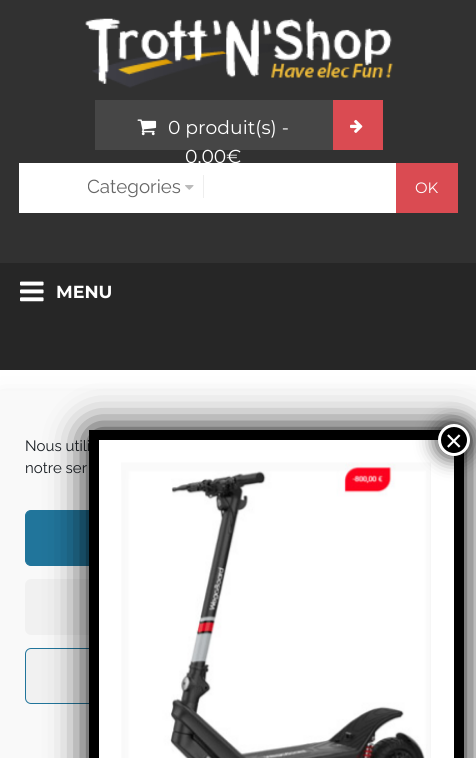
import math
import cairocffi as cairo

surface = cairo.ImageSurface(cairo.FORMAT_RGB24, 476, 758)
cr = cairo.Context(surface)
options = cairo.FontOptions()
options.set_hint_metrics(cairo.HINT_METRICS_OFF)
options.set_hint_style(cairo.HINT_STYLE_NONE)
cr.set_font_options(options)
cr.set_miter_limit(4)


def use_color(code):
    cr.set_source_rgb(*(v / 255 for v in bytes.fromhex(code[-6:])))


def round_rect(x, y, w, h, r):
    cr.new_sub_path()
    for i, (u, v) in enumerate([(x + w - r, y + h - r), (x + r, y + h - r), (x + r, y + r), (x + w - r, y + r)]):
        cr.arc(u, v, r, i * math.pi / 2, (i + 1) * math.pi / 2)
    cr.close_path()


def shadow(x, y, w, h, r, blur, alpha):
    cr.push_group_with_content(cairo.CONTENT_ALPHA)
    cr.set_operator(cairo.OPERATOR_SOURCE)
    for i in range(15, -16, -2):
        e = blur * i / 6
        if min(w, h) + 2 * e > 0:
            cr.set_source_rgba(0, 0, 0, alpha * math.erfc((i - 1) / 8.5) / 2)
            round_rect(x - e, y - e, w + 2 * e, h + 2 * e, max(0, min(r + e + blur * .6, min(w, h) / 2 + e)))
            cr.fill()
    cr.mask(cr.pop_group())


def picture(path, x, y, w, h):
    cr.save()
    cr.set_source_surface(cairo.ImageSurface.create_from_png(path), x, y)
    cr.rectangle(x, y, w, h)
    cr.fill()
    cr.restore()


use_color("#ffffff")
cr.paint()
use_color("#313131")
cr.rectangle(0, 0, 476, 263)
cr.fill()
picture("img1.png", 85, 18, 308, 70)
use_color("#464646")
cr.rectangle(95, 100, 238, 50)
cr.fill()
picture("img2.png", 137, 119, 20, 17)
cr.select_font_face("Montserrat")
cr.set_font_size(18.75)
use_color("#ffffff")
cr.move_to(168, 134)
cr.show_text("0 produit(s) -")
use_color("#da4b52")
cr.rectangle(333, 100, 50, 50)
cr.fill()
picture("img3.png", 350, 119, 13, 14)
use_color("#ffffff")
cr.rectangle(19, 163, 377, 50)
cr.fill()
cr.move_to(185, 163)
cr.show_text("0,00€")
cr.save()
cr.rectangle(88, 173, 93, 30)
cr.clip()
cr.select_font_face("Raleway")
use_color("#666666")
cr.move_to(87, 193)
cr.show_text("Categories")
cr.restore()
picture("img4.png", 185, 185, 9, 5)
use_color("#eeeeee")
cr.rectangle(203, 175, 1, 23)
cr.fill()
use_color("#da4b52")
cr.rectangle(396, 163, 62, 50)
cr.fill()
cr.set_font_size(15)
use_color("#ffffff")
cr.move_to(415, 193)
cr.show_text("OK")
use_color("#262626")
cr.rectangle(0, 263, 476, 107)
cr.fill()
picture("img5.png", 20, 281, 24, 21)
cr.select_font_face("Montserrat", cairo.FONT_SLANT_NORMAL, cairo.FONT_WEIGHT_BOLD)
cr.set_font_size(17.5)
use_color("#ffffff")
cr.move_to(56, 298)
cr.show_text("MENU")
use_color("#000000")
shadow(0, 403, 476, 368, 0, 12.5, 0.19)
use_color("#f9f9f9")
cr.rectangle(0, 391, 476, 367)
cr.fill()
cr.select_font_face("Raleway")
cr.set_font_size(15)
use_color("#191e23")
cr.move_to(25, 451)
cr.show_text("Nous utili")
cr.move_to(25, 473)
cr.show_text("notre ser")
use_color("#21759b")
round_rect(25.5, 510.5, 425, 55, 5.5)
cr.fill_preserve()
cr.set_line_width(1)
cr.stroke()
use_color("#f1f1f1")
round_rect(25, 579, 426, 56, 6)
cr.fill()
round_rect(25.5, 648.5, 425, 55, 5.5)
cr.fill_preserve()
use_color("#21759b")
cr.stroke()
use_color("#020202")
shadow(89, 430, 375, 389, 4, 19, 1)
use_color("#ffffff")
cr.rectangle(99, 440, 355, 318)
cr.fill()
cr.new_path()
cr.move_to(94, 435)
cr.line_to(459, 435)
cr.line_to(459, 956)
cr.line_to(94, 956)
cr.close_path()
use_color("#000000")
cr.set_line_width(10)
cr.stroke()
picture("img6.png", 121, 462, 310, 296)
use_color("#020202")
shadow(436, 423, 35, 35, 17.5, 9.5, 0.75)
use_color("#000000")
cr.arc(454, 440, 14.5, 0, 2 * math.pi)
cr.fill_preserve()
use_color("#ffffff")
cr.set_line_width(3)
cr.stroke()
cr.select_font_face("Liberation Sans")
cr.set_font_size(30)
cr.move_to(445, 451)
cr.show_text("×")
surface.write_to_png("result.png")
